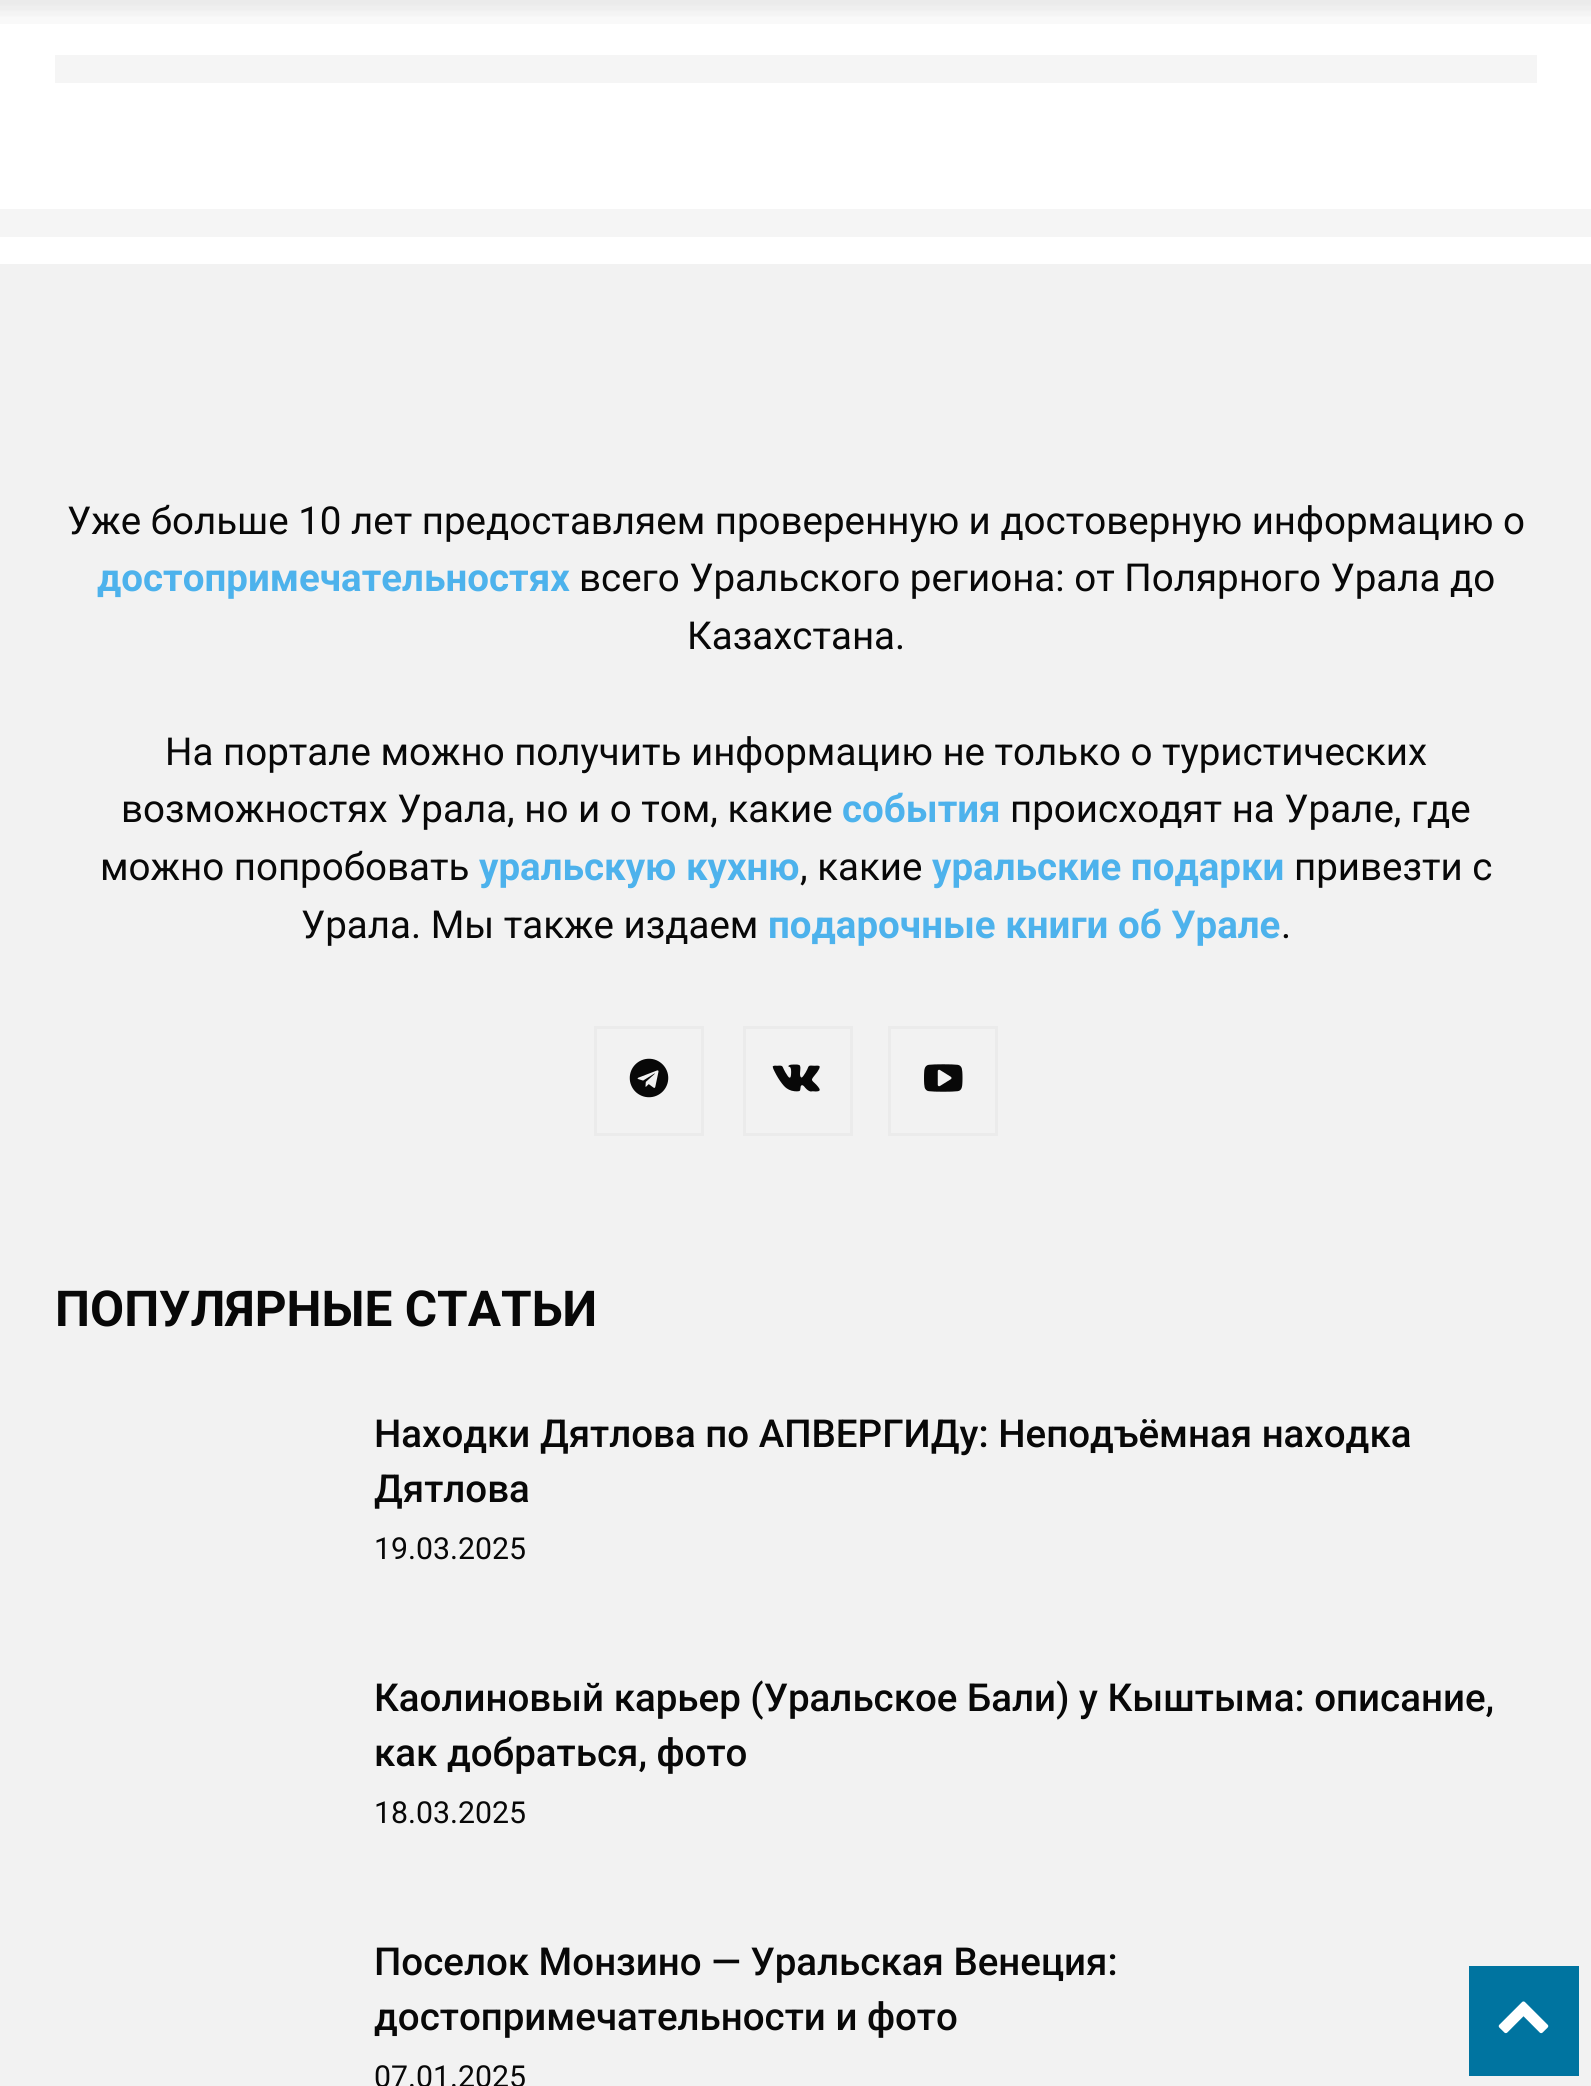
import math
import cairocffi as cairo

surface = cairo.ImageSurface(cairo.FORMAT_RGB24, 1591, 2086)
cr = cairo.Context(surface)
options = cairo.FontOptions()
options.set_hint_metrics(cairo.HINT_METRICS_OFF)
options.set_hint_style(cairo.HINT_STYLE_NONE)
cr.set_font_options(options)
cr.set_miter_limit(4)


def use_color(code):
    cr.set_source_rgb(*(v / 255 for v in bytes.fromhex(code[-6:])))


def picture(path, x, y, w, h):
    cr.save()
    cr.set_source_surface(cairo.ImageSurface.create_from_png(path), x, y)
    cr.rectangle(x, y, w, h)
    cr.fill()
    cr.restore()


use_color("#ffffff")
cr.paint()
picture("img1.png", 0, 0, 1591, 24)
use_color("#f5f5f5")
cr.rectangle(55, 55, 1482, 28)
cr.fill()
cr.rectangle(0, 209, 1591, 28)
cr.fill()
use_color("#f2f2f2")
cr.rectangle(0, 264, 1591, 1822)
cr.fill()
cr.select_font_face("Roboto")
cr.set_font_size(38.5)
use_color("#080808")
cr.move_to(67, 534)
cr.show_text("Уже больше 10 лет предоставляем проверенную и достоверную информацию о")
cr.select_font_face("Roboto", cairo.FONT_SLANT_NORMAL, cairo.FONT_WEIGHT_BOLD)
use_color("#4db2ec")
cr.move_to(97, 591)
cr.show_text("достопримечательностях")
cr.select_font_face("Roboto")
use_color("#080808")
cr.move_to(579, 591)
cr.show_text("всего Уральского региона: от Полярного Урала до")
cr.move_to(687, 649)
cr.show_text("Казахстана.")
cr.move_to(165, 765)
cr.show_text("На портале можно получить информацию не только о туристических")
cr.move_to(121, 822)
cr.show_text("возможностях Урала, но и о том, какие")
cr.select_font_face("Roboto", cairo.FONT_SLANT_NORMAL, cairo.FONT_WEIGHT_BOLD)
use_color("#4db2ec")
cr.move_to(842, 822)
cr.show_text("события")
cr.select_font_face("Roboto")
use_color("#080808")
cr.move_to(1010, 822)
cr.show_text("происходят на Урале, где")
cr.move_to(100, 880)
cr.show_text("можно попробовать")
cr.select_font_face("Roboto", cairo.FONT_SLANT_NORMAL, cairo.FONT_WEIGHT_BOLD)
use_color("#4db2ec")
cr.move_to(479, 880)
cr.show_text("уральскую кухню")
cr.select_font_face("Roboto")
use_color("#080808")
cr.move_to(800, 880)
cr.show_text(", какие")
cr.select_font_face("Roboto", cairo.FONT_SLANT_NORMAL, cairo.FONT_WEIGHT_BOLD)
use_color("#4db2ec")
cr.move_to(932, 880)
cr.show_text("уральские подарки")
cr.select_font_face("Roboto")
use_color("#080808")
cr.move_to(1294, 880)
cr.show_text("привезти с")
cr.move_to(301, 938)
cr.show_text("Урала. Мы также издаем")
cr.select_font_face("Roboto", cairo.FONT_SLANT_NORMAL, cairo.FONT_WEIGHT_BOLD)
use_color("#4db2ec")
cr.move_to(768, 938)
cr.show_text("подарочные книги об Урале")
cr.select_font_face("Roboto")
use_color("#080808")
cr.move_to(1281, 938)
cr.show_text(".")
picture("img2.png", 629, 1058, 40, 40)
cr.rectangle(595.5, 1027.5, 107, 107)
use_color("#ebebeb")
cr.set_line_width(3)
cr.stroke()
picture("img3.png", 772, 1064, 48, 28)
cr.rectangle(744.5, 1027.5, 107, 107)
cr.stroke()
picture("img4.png", 924, 1064, 39, 28)
cr.rectangle(889.5, 1027.5, 107, 107)
cr.stroke()
cr.select_font_face("Roboto", cairo.FONT_SLANT_NORMAL, cairo.FONT_WEIGHT_BOLD)
cr.set_font_size(49.5)
use_color("#080808")
cr.move_to(55, 1326)
cr.show_text("ПОПУЛЯРНЫЕ СТАТЬИ")
cr.select_font_face("Roboto Medium")
cr.set_font_size(38.5)
cr.move_to(374, 1447)
cr.show_text("Находки Дятлова по АПВЕРГИДу: Неподъёмная находка")
cr.move_to(374, 1502)
cr.show_text("Дятлова")
cr.select_font_face("Roboto")
cr.set_font_size(30.25)
cr.move_to(374, 1559)
cr.show_text("19.03.2025")
cr.select_font_face("Roboto Medium")
cr.set_font_size(38.5)
cr.move_to(374, 1711)
cr.show_text("Каолиновый карьер (Уральское Бали) у Кыштыма: описание,")
cr.move_to(374, 1766)
cr.show_text("как добраться, фото")
cr.select_font_face("Roboto")
cr.set_font_size(30.25)
cr.move_to(374, 1823)
cr.show_text("18.03.2025")
cr.select_font_face("Roboto Medium")
cr.set_font_size(38.5)
cr.move_to(374, 1975)
cr.show_text("Поселок Монзино — Уральская Венеция:")
cr.move_to(374, 2030)
cr.show_text("достопримечательности и фото")
cr.select_font_face("Roboto")
cr.set_font_size(30.25)
cr.move_to(374, 2087)
cr.show_text("07.01.2025")
use_color("#0074a0")
cr.rectangle(1469, 1966, 110, 110)
cr.fill()
picture("img5.png", 1498, 2001, 51, 33)
surface.write_to_png("result.png")
